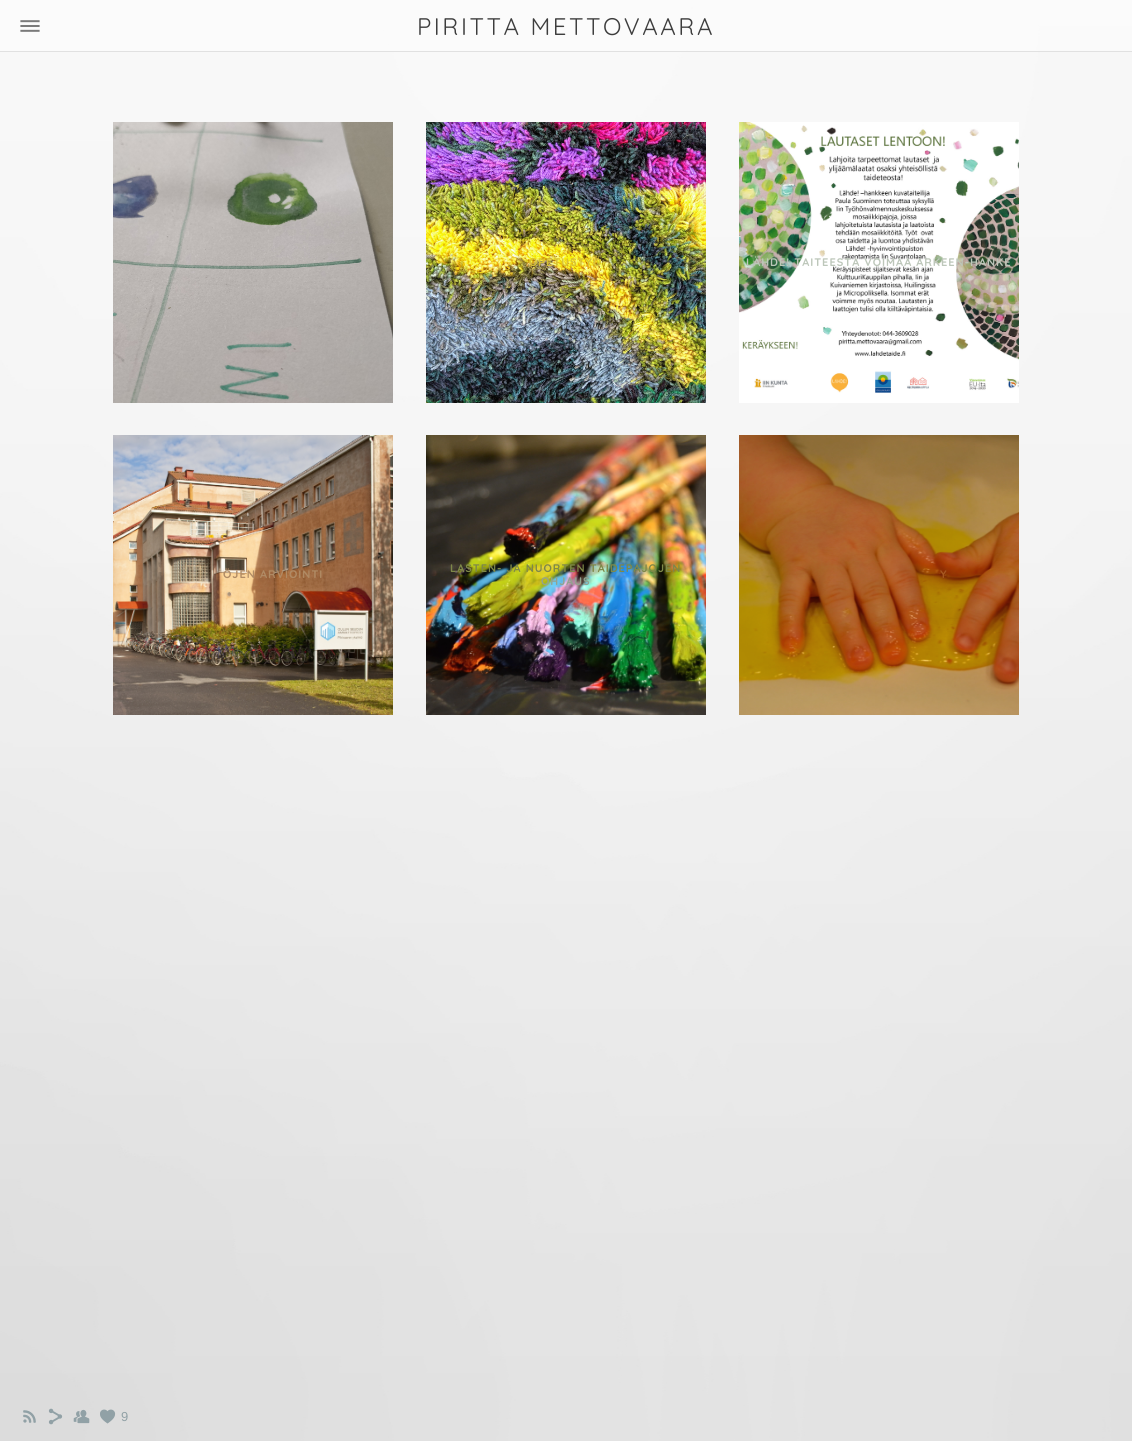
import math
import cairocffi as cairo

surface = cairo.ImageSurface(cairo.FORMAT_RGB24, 1132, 1441)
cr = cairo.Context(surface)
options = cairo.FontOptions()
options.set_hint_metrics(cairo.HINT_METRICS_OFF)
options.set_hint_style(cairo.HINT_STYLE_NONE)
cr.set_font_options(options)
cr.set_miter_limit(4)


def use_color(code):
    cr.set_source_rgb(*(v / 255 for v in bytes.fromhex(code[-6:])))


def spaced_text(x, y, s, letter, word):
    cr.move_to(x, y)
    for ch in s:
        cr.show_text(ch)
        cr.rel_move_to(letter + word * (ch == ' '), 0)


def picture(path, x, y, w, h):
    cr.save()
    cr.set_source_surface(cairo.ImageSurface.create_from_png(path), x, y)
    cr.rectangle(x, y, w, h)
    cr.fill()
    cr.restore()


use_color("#ffffff")
cr.paint()
picture("img1.png", 0, 0, 1132, 1441)
cr.set_source_rgba(1, 1, 1, 0.4)
cr.rectangle(0, 0, 1132, 51)
cr.fill()
picture("img2.png", 20, 20, 20, 12)
use_color("#e1e1e1")
cr.rectangle(0, 51, 1132, 1)
cr.fill()
cr.select_font_face("Quicksand")
cr.set_font_size(24)
use_color("#3d3d3d")
spaced_text(417, 35, "PIRITTA METTOVAARA", 2.5, 0)
picture("img3.png", 113, 122, 280, 281)
picture("img4.png", 426, 122, 280, 281)
cr.select_font_face("Quicksand", cairo.FONT_SLANT_NORMAL, cairo.FONT_WEIGHT_BOLD)
cr.set_font_size(11)
use_color("#d6c236")
spaced_text(529, 266, "OPETUSTYÖ", 1, 0)
picture("img5.png", 739, 122, 280, 281)
use_color("#bdc7ba")
spaced_text(746, 266, "LÄHDE! TAITEESTA VOIMAA ARKEEN-HANKE", 1, 0)
picture("img6.png", 113, 435, 280, 280)
use_color("#b08b65")
spaced_text(223, 578, "ÖJEN ARVIOINTI", 1, 0)
picture("img7.png", 426, 435, 280, 280)
use_color("#7e8849")
spaced_text(450, 572, "LASTEN- JA NUORTEN TAIDEPAJOJEN", 1, 0)
use_color("#92a38f")
spaced_text(541, 585, "OHJAUS", 1, 0)
picture("img8.png", 739, 435, 280, 280)
use_color("#a65821")
spaced_text(940, 578, "Y", 1, 0)
picture("img9.png", 23, 1410, 13, 13)
picture("img10.png", 48, 1408, 15, 17)
picture("img11.png", 73, 1409, 17, 15)
picture("img12.png", 100, 1409, 16, 15)
cr.select_font_face("Liberation Sans")
cr.set_font_size(13)
use_color("#91a1a6")
cr.move_to(121, 1421)
cr.show_text("9")
surface.write_to_png("result.png")
